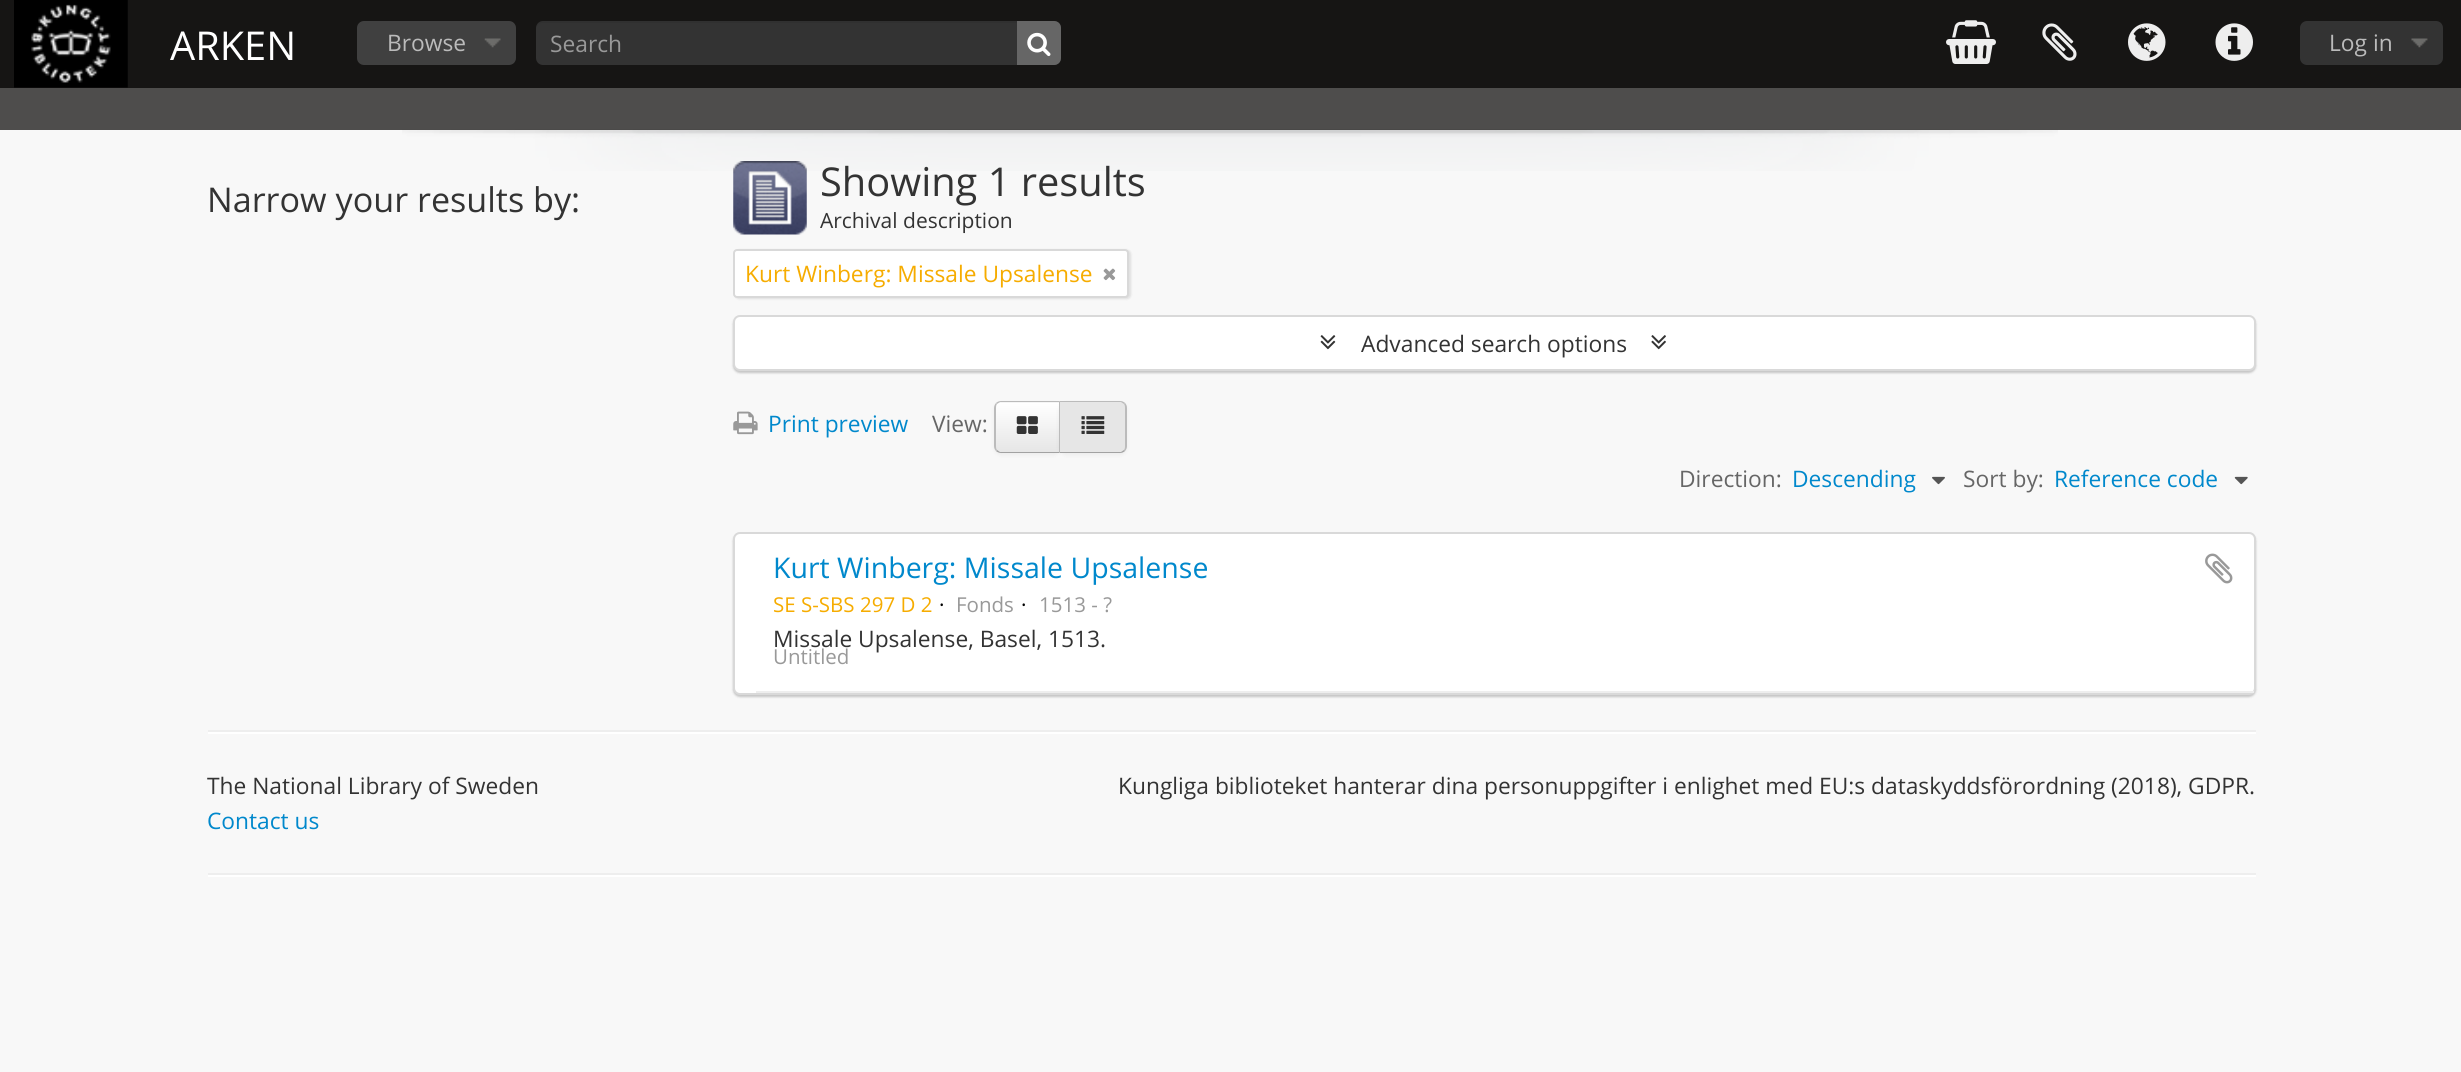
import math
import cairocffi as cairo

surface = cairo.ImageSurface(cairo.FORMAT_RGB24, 2461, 1072)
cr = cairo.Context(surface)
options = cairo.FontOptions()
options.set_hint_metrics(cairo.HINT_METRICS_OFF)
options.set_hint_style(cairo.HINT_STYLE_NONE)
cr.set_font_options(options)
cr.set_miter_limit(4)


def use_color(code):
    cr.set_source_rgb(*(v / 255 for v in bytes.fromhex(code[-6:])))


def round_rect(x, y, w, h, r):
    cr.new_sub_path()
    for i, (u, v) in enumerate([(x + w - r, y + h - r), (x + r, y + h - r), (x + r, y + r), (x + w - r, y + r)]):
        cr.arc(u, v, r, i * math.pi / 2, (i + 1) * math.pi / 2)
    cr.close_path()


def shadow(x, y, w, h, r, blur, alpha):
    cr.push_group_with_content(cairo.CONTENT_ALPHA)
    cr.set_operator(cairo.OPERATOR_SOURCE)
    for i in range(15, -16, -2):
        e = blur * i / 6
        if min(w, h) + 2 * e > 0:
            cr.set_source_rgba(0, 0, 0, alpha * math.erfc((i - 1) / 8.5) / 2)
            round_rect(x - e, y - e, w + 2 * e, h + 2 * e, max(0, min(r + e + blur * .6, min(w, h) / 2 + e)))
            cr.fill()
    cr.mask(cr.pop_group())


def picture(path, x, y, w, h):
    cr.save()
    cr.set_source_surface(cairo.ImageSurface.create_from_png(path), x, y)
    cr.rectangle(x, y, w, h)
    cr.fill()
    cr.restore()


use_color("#f8f8f8")
cr.paint()
use_color("#161514")
cr.rectangle(0, 0, 2461, 88)
cr.fill()
picture("img1.png", 14, 0, 114, 88)
cr.select_font_face("Open Sans")
cr.set_font_size(39.75)
use_color("#ffffff")
cr.move_to(170, 60)
cr.show_text("ARKEN")
use_color("#404040")
round_rect(357, 21, 159, 44, 7)
cr.fill()
picture("img2.png", 484, 38, 17, 10)
cr.set_font_size(22.75)
use_color("#bbbbbb")
cr.move_to(387, 51)
cr.show_text("Browse")
use_color("#333333")
round_rect(536, 21, 525, 44, 7)
cr.fill()
cr.set_source_rgba(0, 0, 0, 0.07)
cr.new_path()
cr.move_to(542, 23)
cr.line_to(1054, 23)
cr.curve_to(1057, 23, 1060, 26, 1060, 30)
cr.line_to(1060, 60)
cr.line_to(1059, 63)
cr.curve_to(1060, 61, 1061, 60, 1061, 58)
cr.line_to(1061, 28)
cr.curve_to(1061, 24, 1058, 21, 1054, 21)
cr.line_to(543, 21)
cr.curve_to(539, 21, 536, 24, 536, 28)
cr.line_to(536, 30)
cr.curve_to(536, 26, 539, 23, 542, 23)
cr.close_path()
cr.fill()
use_color("#999999")
cr.move_to(550, 52)
cr.show_text("Search")
use_color("#666666")
cr.new_path()
cr.move_to(1017, 21)
cr.line_to(1054, 21)
cr.curve_to(1058, 21, 1061, 24, 1061, 28)
cr.line_to(1061, 58)
cr.curve_to(1061, 62, 1058, 65, 1054, 65)
cr.line_to(1017, 65)
cr.close_path()
cr.fill()
picture("img3.png", 1027, 32, 24, 25)
picture("img4.png", 1946, 20, 50, 44)
picture("img5.png", 2042, 23, 35, 38)
picture("img6.png", 2128, 23, 38, 38)
picture("img7.png", 2215, 23, 38, 38)
use_color("#333333")
round_rect(2300, 21, 143, 44, 7)
cr.fill()
picture("img8.png", 2411, 38, 17, 10)
use_color("#bbbbbb")
cr.move_to(2329, 51)
cr.show_text("Log in")
picture("img9.png", 402, 129, 1656, 42)
cr.set_source_rgba(0.086, 0.082, 0.078, 0.75)
cr.rectangle(0, 88, 2461, 42)
cr.fill()
cr.set_font_size(34.1)
use_color("#333333")
cr.move_to(207, 212)
cr.show_text("Narrow your results by:")
picture("img10.png", 733, 161, 74, 74)
cr.set_font_size(39.75)
cr.move_to(820, 196)
cr.show_text("Showing 1 results")
cr.set_font_size(21)
cr.move_to(820, 228)
cr.show_text("Archival description")
use_color("#000000")
shadow(735, 250, 396, 49, 4, 1, 0.1)
use_color("#ffffff")
round_rect(734, 250, 394, 47, 3)
cr.fill_preserve()
use_color("#d9d9d9")
cr.stroke()
cr.set_font_size(22.75)
use_color("#f6ac00")
cr.move_to(745, 282)
cr.show_text("Kurt Winberg: Missale Upsalense")
picture("img11.png", 1103, 268, 13, 13)
use_color("#000000")
shadow(733, 317, 1523, 56, 7, 1, 0.2)
use_color("#ffffff")
round_rect(734, 316, 1521, 54, 6)
cr.fill_preserve()
use_color("#d9d9d9")
cr.stroke()
picture("img12.png", 1320, 335, 16, 15)
use_color("#333333")
cr.move_to(1361, 352)
cr.show_text("Advanced search options")
picture("img13.png", 1651, 335, 15, 15)
picture("img14.png", 733, 411, 25, 24)
use_color("#0088cc")
cr.move_to(768, 432)
cr.show_text("Print preview")
use_color("#666666")
cr.move_to(932, 432)
cr.show_text("View:")
use_color("#000000")
shadow(994, 403, 67, 52, 7, 2, 0.05)
use_color("#f5f5f5")
cr.new_path()
cr.move_to(1001, 401)
cr.line_to(1061, 401)
cr.line_to(1061, 453)
cr.line_to(1001, 453)
cr.curve_to(997, 453, 994, 450, 994, 446)
cr.line_to(994, 408)
cr.curve_to(994, 404, 997, 401, 1001, 401)
cr.close_path()
cr.fill()
cr.save()
cr.new_path()
cr.move_to(1001, 401)
cr.line_to(1061, 401)
cr.line_to(1061, 453)
cr.line_to(1001, 453)
cr.curve_to(997, 453, 994, 450, 994, 446)
cr.line_to(994, 408)
cr.curve_to(994, 404, 997, 401, 1001, 401)
cr.close_path()
cr.clip()
gradient = cairo.LinearGradient(1027, 403, 1027, 452)
gradient.add_color_stop_rgba(0, 1, 1, 1, 1)
gradient.add_color_stop_rgba(1, 0.902, 0.902, 0.902, 1)
cr.set_source(gradient)
cr.rectangle(994, 403, 65, 49)
cr.fill()
cr.restore()
use_color("#bbbbbb")
cr.new_path()
cr.move_to(1001, 401)
cr.curve_to(999, 401, 997, 402, 996, 403)
cr.line_to(997, 404)
cr.line_to(1000, 402)
cr.line_to(1059, 402)
cr.line_to(1060, 401)
cr.close_path()
cr.fill()
use_color("#a2a2a2")
cr.new_path()
cr.move_to(1060, 453)
cr.line_to(1001, 453)
cr.curve_to(999, 453, 997, 452, 996, 451)
cr.line_to(997, 450)
cr.line_to(1000, 452)
cr.line_to(1059, 452)
cr.close_path()
cr.fill()
use_color("#bbbbbb")
cr.new_path()
cr.move_to(994, 408)
cr.line_to(994, 446)
cr.curve_to(994, 448, 995, 450, 996, 451)
cr.line_to(997, 450)
cr.curve_to(996, 449, 996, 447, 996, 446)
cr.line_to(996, 408)
cr.curve_to(996, 407, 996, 405, 997, 404)
cr.line_to(996, 403)
cr.curve_to(995, 404, 994, 406, 994, 408)
cr.close_path()
cr.fill()
picture("img15.png", 1016, 416, 22, 18)
use_color("#000000")
shadow(1059, 403, 68, 52, 7, 2, 0.05)
use_color("#e6e6e6")
cr.new_path()
cr.move_to(1059, 401)
cr.line_to(1120, 401)
cr.curve_to(1124, 401, 1127, 404, 1127, 408)
cr.line_to(1127, 446)
cr.curve_to(1127, 450, 1124, 453, 1120, 453)
cr.line_to(1059, 453)
cr.close_path()
cr.fill()
use_color("#bbbbbb")
cr.new_path()
cr.move_to(1059, 401)
cr.line_to(1060, 402)
cr.line_to(1121, 402)
cr.line_to(1124, 404)
cr.line_to(1125, 403)
cr.curve_to(1124, 402, 1122, 401, 1120, 401)
cr.close_path()
cr.fill()
cr.new_path()
cr.move_to(1125, 403)
cr.curve_to(1126, 404, 1127, 406, 1127, 408)
cr.line_to(1127, 446)
cr.curve_to(1127, 448, 1126, 450, 1125, 451)
cr.line_to(1124, 450)
cr.curve_to(1125, 449, 1125, 447, 1125, 446)
cr.line_to(1125, 408)
cr.curve_to(1125, 407, 1125, 405, 1124, 404)
cr.close_path()
cr.fill()
use_color("#a2a2a2")
cr.new_path()
cr.move_to(1125, 451)
cr.curve_to(1124, 452, 1122, 453, 1120, 453)
cr.line_to(1059, 453)
cr.line_to(1060, 452)
cr.line_to(1121, 452)
cr.line_to(1124, 450)
cr.close_path()
cr.fill()
use_color("#bbbbbb")
cr.new_path()
cr.move_to(1060, 402)
cr.line_to(1059, 401)
cr.line_to(1059, 453)
cr.line_to(1060, 452)
cr.close_path()
cr.fill()
picture("img16.png", 1081, 416, 24, 18)
use_color("#666666")
cr.move_to(1679, 487)
cr.show_text("Direction:")
use_color("#0088cc")
cr.move_to(1792, 487)
cr.show_text("Descending")
picture("img17.png", 1932, 476, 13, 9)
use_color("#666666")
cr.move_to(1963, 487)
cr.show_text("Sort by:")
use_color("#0088cc")
cr.move_to(2054, 487)
cr.show_text("Reference code")
picture("img18.png", 2234, 476, 14, 9)
use_color("#000000")
shadow(733, 534, 1523, 163, 7, 1, 0.2)
use_color("#ffffff")
round_rect(734, 533, 1521, 161, 6)
cr.fill_preserve()
use_color("#d9d9d9")
cr.stroke()
use_color("#eeeeee")
cr.rectangle(756, 691, 1498, 2)
cr.fill()
cr.set_font_size(28.5)
use_color("#0088cc")
cr.move_to(773, 578)
cr.show_text("Kurt Winberg: Missale Upsalense")
picture("img19.png", 2205, 553, 28, 31)
cr.set_font_size(20.5)
use_color("#f6ac00")
cr.move_to(773, 612)
cr.show_text("SE S-SBS 297 D 2")
use_color("#000000")
cr.move_to(939, 612)
cr.show_text("·")
use_color("#999999")
cr.move_to(956, 612)
cr.show_text("Fonds")
use_color("#000000")
cr.move_to(1021, 612)
cr.show_text("·")
use_color("#999999")
cr.move_to(1039, 612)
cr.show_text("1513 - ?")
cr.set_font_size(22.75)
use_color("#333333")
cr.move_to(773, 647)
cr.show_text("Missale Upsalense, Basel, 1513.")
cr.set_font_size(20.5)
use_color("#999999")
cr.move_to(773, 664)
cr.show_text("Untitled")
use_color("#eeeeee")
cr.rectangle(208, 730, 2048, 2)
cr.fill()
use_color("#ffffff")
cr.rectangle(208, 732, 2048, 2)
cr.fill()
cr.set_font_size(22.75)
use_color("#333333")
cr.move_to(207, 794)
cr.show_text("The National Library of Sweden")
use_color("#0088cc")
cr.move_to(207, 829)
cr.show_text("Contact us")
use_color("#333333")
cr.move_to(1118, 794)
cr.show_text("Kungliga biblioteket hanterar dina personuppgifter i enlighet med EU:s dataskyddsförordning (2018), GDPR.")
use_color("#eeeeee")
cr.rectangle(208, 873, 2048, 2)
cr.fill()
use_color("#ffffff")
cr.rectangle(208, 875, 2048, 2)
cr.fill()
surface.write_to_png("result.png")
